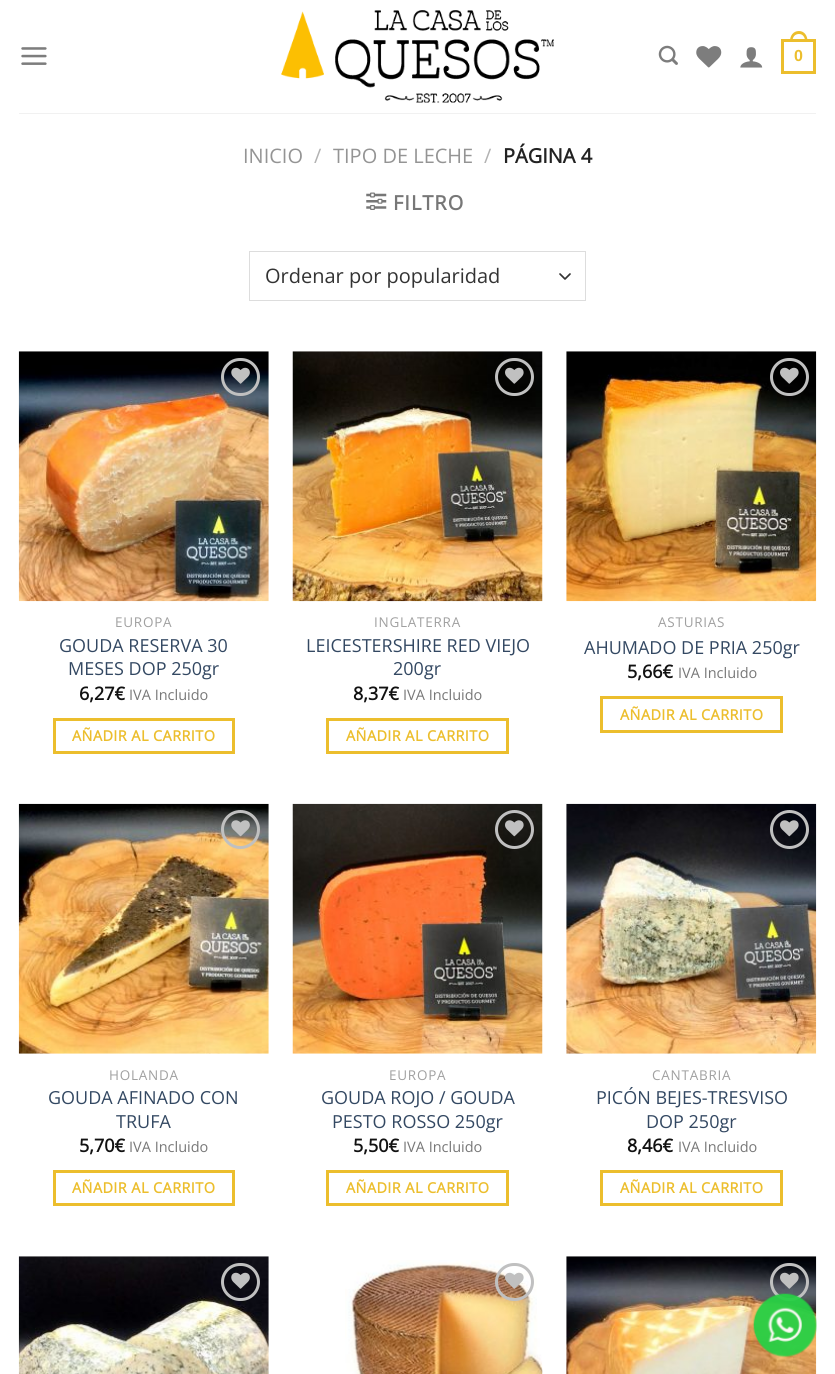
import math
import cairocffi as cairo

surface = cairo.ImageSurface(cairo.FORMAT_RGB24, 835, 1374)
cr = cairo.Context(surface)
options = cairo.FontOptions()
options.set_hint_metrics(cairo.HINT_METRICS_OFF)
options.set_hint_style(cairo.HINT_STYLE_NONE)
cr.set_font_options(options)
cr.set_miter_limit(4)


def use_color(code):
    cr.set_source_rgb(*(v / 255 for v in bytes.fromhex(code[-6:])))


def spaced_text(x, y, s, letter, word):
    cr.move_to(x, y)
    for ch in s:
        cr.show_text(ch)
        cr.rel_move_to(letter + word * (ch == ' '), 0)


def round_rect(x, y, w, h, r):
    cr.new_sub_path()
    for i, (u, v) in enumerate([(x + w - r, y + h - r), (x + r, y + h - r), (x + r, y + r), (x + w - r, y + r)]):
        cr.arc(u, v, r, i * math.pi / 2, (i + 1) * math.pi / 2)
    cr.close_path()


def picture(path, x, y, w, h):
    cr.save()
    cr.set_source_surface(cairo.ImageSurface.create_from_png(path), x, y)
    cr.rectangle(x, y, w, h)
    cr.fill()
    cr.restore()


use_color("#ffffff")
cr.paint()
picture("img1.png", 21, 47, 26, 18)
picture("img2.png", 281, 10, 273, 93)
picture("img3.png", 658, 45, 20, 20)
picture("img4.png", 696, 46, 26, 22)
picture("img5.png", 740, 47, 23, 21)
cr.rectangle(782.5, 40.5, 32, 32)
use_color("#ecbe2d")
cr.set_line_width(3)
cr.stroke()
cr.set_fill_rule(cairo.FILL_RULE_EVEN_ODD)
cr.new_path()
cr.move_to(799, 31)
cr.curve_to(804.5, 31, 807.5, 36, 807.5, 41)
cr.line_to(790, 41)
cr.curve_to(790, 36, 793, 31, 799, 31)
cr.close_path()
cr.move_to(799, 34)
cr.curve_to(803, 34, 805, 37.5, 805, 41)
cr.line_to(792.5, 41)
cr.curve_to(792.5, 37.5, 794.5, 34, 799, 34)
cr.close_path()
cr.fill()
cr.select_font_face("Liberation Sans", cairo.FONT_SLANT_NORMAL, cairo.FONT_WEIGHT_BOLD)
cr.set_font_size(16)
cr.move_to(794, 61)
cr.show_text("0")
use_color("#f1f1f1")
cr.rectangle(19, 113, 797, 1)
cr.fill()
cr.select_font_face("Open Sans")
cr.set_font_size(20)
use_color("#949494")
cr.move_to(243, 163)
cr.show_text("INICIO")
use_color("#b2b2b2")
cr.move_to(314, 163)
cr.show_text("/")
use_color("#949494")
cr.move_to(333, 163)
cr.show_text("TIPO DE LECHE")
use_color("#b2b2b2")
cr.move_to(484, 163)
cr.show_text("/")
cr.select_font_face("Open Sans", cairo.FONT_SLANT_NORMAL, cairo.FONT_WEIGHT_BOLD)
use_color("#222222")
cr.move_to(503, 163)
cr.show_text("PÁGINA 4")
picture("img6.png", 366, 192, 21, 18)
use_color("#777777")
spaced_text(393, 210, "FILTRO", 1, 0)
cr.new_path()
cr.move_to(560, 274)
cr.line_to(565, 279)
cr.line_to(570, 274)
use_color("#333333")
cr.set_line_width(1.7)
cr.set_line_cap(cairo.LINE_CAP_ROUND)
cr.set_line_join(cairo.LINE_JOIN_ROUND)
cr.stroke()
cr.rectangle(249.5, 251.5, 336, 49)
use_color("#dddddd")
cr.set_line_width(1)
cr.set_line_cap(cairo.LINE_CAP_BUTT)
cr.set_line_join(cairo.LINE_JOIN_MITER)
cr.stroke()
cr.select_font_face("Open Sans")
use_color("#333333")
cr.move_to(265, 283)
cr.show_text("Ordenar por popularidad")
picture("img7.png", 18, 351, 251, 251)
round_rect(222.5, 359.5, 36, 35, 17.5)
use_color("#c0c0c0")
cr.set_line_width(3)
cr.stroke()
picture("img8.png", 231, 367, 19, 17)
cr.set_font_size(13.5)
use_color("#a0a0a0")
spaced_text(115, 627, "EUROPA", 0.75, 0)
cr.set_font_size(18)
use_color("#334862")
cr.move_to(59, 652)
cr.show_text("GOUDA RESERVA 30")
cr.move_to(68, 675)
cr.show_text("MESES DOP 250gr")
cr.select_font_face("Open Sans", cairo.FONT_SLANT_NORMAL, cairo.FONT_WEIGHT_BOLD)
use_color("#111111")
cr.move_to(79, 700)
cr.show_text("6,27€")
cr.select_font_face("Open Sans")
cr.set_font_size(14.5)
use_color("#777777")
cr.move_to(129, 700)
cr.show_text("IVA Incluido")
cr.rectangle(54.5, 719.5, 179, 33)
use_color("#ecbe2d")
cr.stroke()
cr.select_font_face("Open Sans", cairo.FONT_SLANT_NORMAL, cairo.FONT_WEIGHT_BOLD)
spaced_text(72, 741, "AÑADIR AL CARRITO", 0.4, 0)
picture("img9.png", 292, 351, 251, 251)
round_rect(496.5, 359.5, 36, 35, 17.5)
use_color("#c0c0c0")
cr.stroke()
picture("img10.png", 505, 367, 19, 17)
cr.select_font_face("Open Sans")
cr.set_font_size(13.5)
use_color("#a0a0a0")
spaced_text(374, 627, "INGLATERRA", 0.75, 0)
cr.set_font_size(18)
use_color("#334862")
cr.move_to(306, 652)
cr.show_text("LEICESTERSHIRE RED VIEJO")
cr.move_to(393, 675)
cr.show_text("200gr")
cr.select_font_face("Open Sans", cairo.FONT_SLANT_NORMAL, cairo.FONT_WEIGHT_BOLD)
use_color("#111111")
cr.move_to(353, 700)
cr.show_text("8,37€")
cr.select_font_face("Open Sans")
cr.set_font_size(14.5)
use_color("#777777")
cr.move_to(403, 700)
cr.show_text("IVA Incluido")
cr.rectangle(327.5, 719.5, 180, 33)
use_color("#ecbe2d")
cr.stroke()
cr.select_font_face("Open Sans", cairo.FONT_SLANT_NORMAL, cairo.FONT_WEIGHT_BOLD)
spaced_text(346, 741, "AÑADIR AL CARRITO", 0.4, 0)
picture("img11.png", 566, 351, 251, 251)
round_rect(771.5, 359.5, 36, 35, 17.5)
use_color("#c0c0c0")
cr.stroke()
picture("img12.png", 780, 367, 19, 17)
cr.select_font_face("Open Sans")
cr.set_font_size(13.5)
use_color("#a0a0a0")
spaced_text(658, 627, "ASTURIAS", 0.75, 0)
cr.set_font_size(18)
use_color("#334862")
cr.move_to(584, 654)
cr.show_text("AHUMADO DE PRIA 250gr")
cr.select_font_face("Open Sans", cairo.FONT_SLANT_NORMAL, cairo.FONT_WEIGHT_BOLD)
use_color("#111111")
cr.move_to(627, 678)
cr.show_text("5,66€")
cr.select_font_face("Open Sans")
cr.set_font_size(14.5)
use_color("#777777")
cr.move_to(678, 678)
cr.show_text("IVA Incluido")
cr.rectangle(601.5, 697.5, 180, 34)
use_color("#ecbe2d")
cr.stroke()
cr.select_font_face("Open Sans", cairo.FONT_SLANT_NORMAL, cairo.FONT_WEIGHT_BOLD)
spaced_text(620, 720, "AÑADIR AL CARRITO", 0.4, 0)
picture("img13.png", 18, 803, 251, 251)
cr.arc(240.5, 829.5, 18, 0, 2 * math.pi)
use_color("#c0c0c0")
cr.stroke()
picture("img14.png", 231, 820, 19, 17)
cr.select_font_face("Open Sans")
cr.set_font_size(13.5)
use_color("#a0a0a0")
spaced_text(109, 1080, "HOLANDA", 0.75, 0)
cr.set_font_size(18)
use_color("#334862")
cr.move_to(48, 1104)
cr.show_text("GOUDA AFINADO CON")
cr.move_to(116, 1128)
cr.show_text("TRUFA")
cr.select_font_face("Open Sans", cairo.FONT_SLANT_NORMAL, cairo.FONT_WEIGHT_BOLD)
use_color("#111111")
cr.move_to(79, 1152)
cr.show_text("5,70€")
cr.select_font_face("Open Sans")
cr.set_font_size(14.5)
use_color("#777777")
cr.move_to(129, 1152)
cr.show_text("IVA Incluido")
cr.rectangle(54.5, 1171.5, 179, 33)
use_color("#ecbe2d")
cr.stroke()
cr.select_font_face("Open Sans", cairo.FONT_SLANT_NORMAL, cairo.FONT_WEIGHT_BOLD)
spaced_text(72, 1193, "AÑADIR AL CARRITO", 0.4, 0)
picture("img15.png", 292, 803, 251, 251)
cr.arc(514.5, 829.5, 18, 0, 2 * math.pi)
use_color("#c0c0c0")
cr.stroke()
picture("img16.png", 505, 820, 19, 17)
cr.select_font_face("Open Sans")
cr.set_font_size(13.5)
use_color("#a0a0a0")
spaced_text(389, 1080, "EUROPA", 0.75, 0)
cr.set_font_size(18)
use_color("#334862")
cr.move_to(321, 1104)
cr.show_text("GOUDA ROJO / GOUDA")
cr.move_to(332, 1128)
cr.show_text("PESTO ROSSO 250gr")
cr.select_font_face("Open Sans", cairo.FONT_SLANT_NORMAL, cairo.FONT_WEIGHT_BOLD)
use_color("#111111")
cr.move_to(353, 1152)
cr.show_text("5,50€")
cr.select_font_face("Open Sans")
cr.set_font_size(14.5)
use_color("#777777")
cr.move_to(403, 1152)
cr.show_text("IVA Incluido")
cr.rectangle(327.5, 1171.5, 180, 33)
use_color("#ecbe2d")
cr.stroke()
cr.select_font_face("Open Sans", cairo.FONT_SLANT_NORMAL, cairo.FONT_WEIGHT_BOLD)
spaced_text(346, 1193, "AÑADIR AL CARRITO", 0.4, 0)
picture("img17.png", 566, 803, 251, 251)
cr.arc(789.5, 829.5, 18, 0, 2 * math.pi)
use_color("#c0c0c0")
cr.stroke()
picture("img18.png", 780, 820, 19, 17)
cr.select_font_face("Open Sans")
cr.set_font_size(13.5)
use_color("#a0a0a0")
spaced_text(652, 1080, "CANTABRIA", 0.75, 0)
cr.set_font_size(18)
use_color("#334862")
cr.move_to(596, 1104)
cr.show_text("PICÓN BEJES-TRESVISO")
cr.move_to(646, 1128)
cr.show_text("DOP 250gr")
cr.select_font_face("Open Sans", cairo.FONT_SLANT_NORMAL, cairo.FONT_WEIGHT_BOLD)
use_color("#111111")
cr.move_to(627, 1152)
cr.show_text("8,46€")
cr.select_font_face("Open Sans")
cr.set_font_size(14.5)
use_color("#777777")
cr.move_to(678, 1152)
cr.show_text("IVA Incluido")
cr.rectangle(601.5, 1171.5, 180, 33)
use_color("#ecbe2d")
cr.stroke()
cr.select_font_face("Open Sans", cairo.FONT_SLANT_NORMAL, cairo.FONT_WEIGHT_BOLD)
spaced_text(620, 1193, "AÑADIR AL CARRITO", 0.4, 0)
picture("img19.png", 18, 1256, 251, 118)
round_rect(222.5, 1264.5, 36, 35, 17.5)
use_color("#c0c0c0")
cr.stroke()
picture("img20.png", 231, 1272, 19, 17)
picture("img21.png", 345, 1260, 198, 114)
round_rect(496.5, 1264.5, 36, 35, 17.5)
cr.stroke()
picture("img22.png", 505, 1272, 19, 17)
picture("img23.png", 566, 1256, 251, 118)
round_rect(771.5, 1264.5, 36, 35, 17.5)
cr.stroke()
picture("img24.png", 780, 1272, 19, 17)
picture("img25.png", 753, 1293, 64, 64)
surface.write_to_png("result.png")
